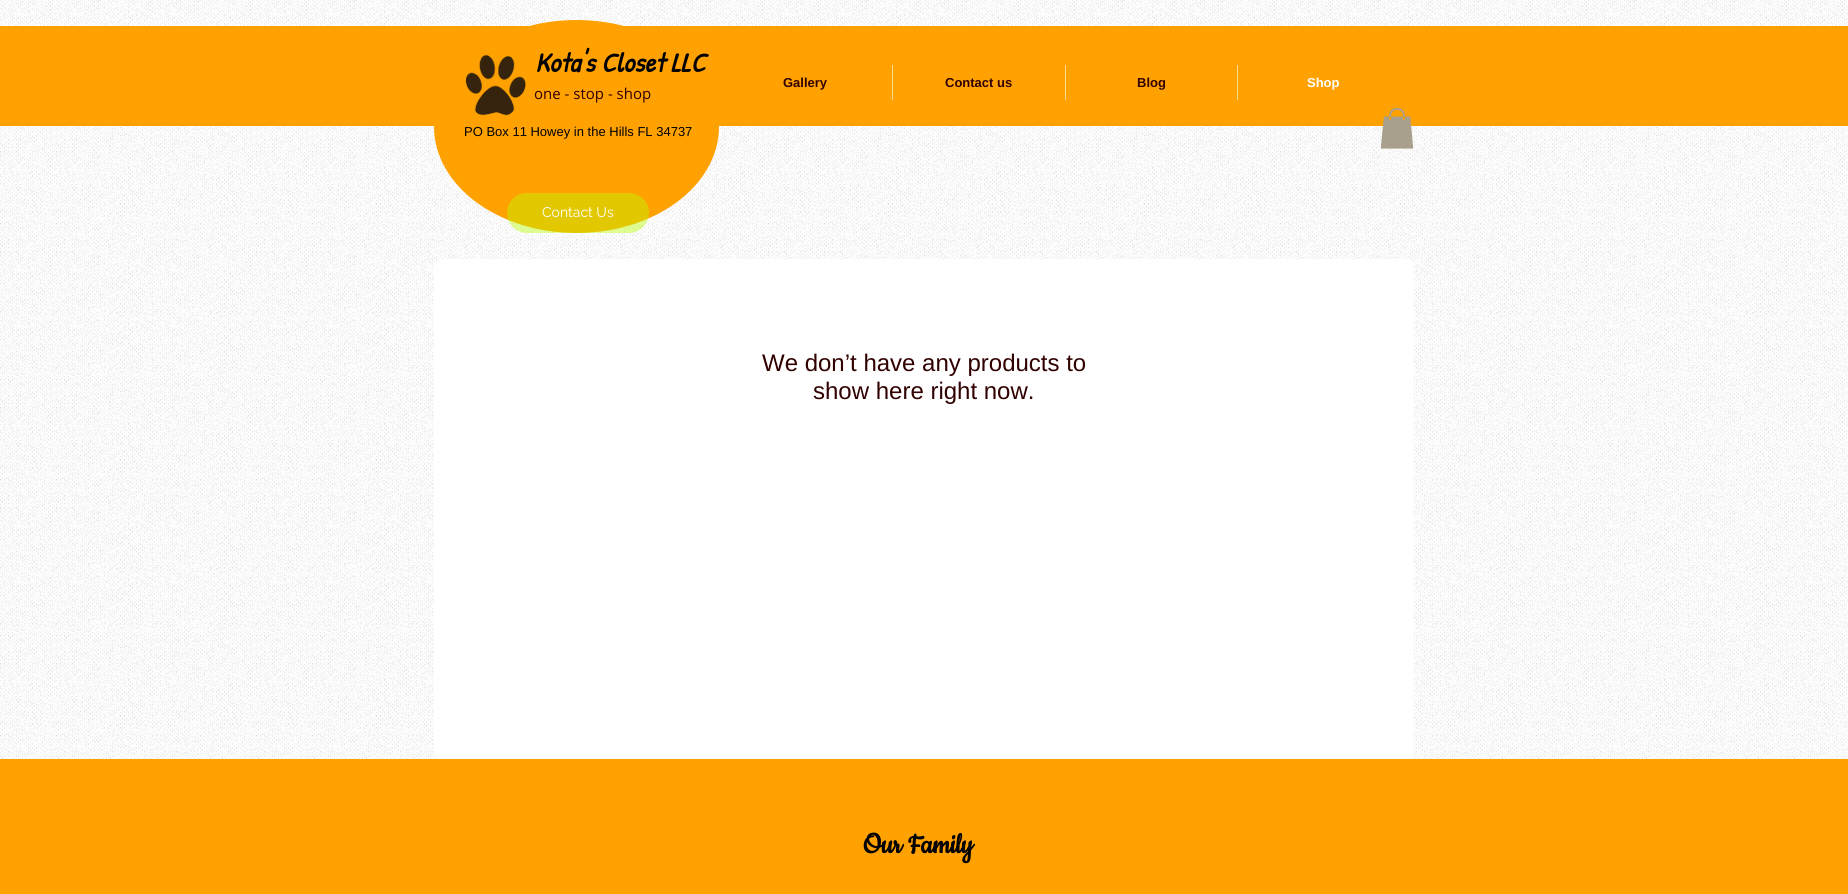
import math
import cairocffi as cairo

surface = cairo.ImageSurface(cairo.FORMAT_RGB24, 1848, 894)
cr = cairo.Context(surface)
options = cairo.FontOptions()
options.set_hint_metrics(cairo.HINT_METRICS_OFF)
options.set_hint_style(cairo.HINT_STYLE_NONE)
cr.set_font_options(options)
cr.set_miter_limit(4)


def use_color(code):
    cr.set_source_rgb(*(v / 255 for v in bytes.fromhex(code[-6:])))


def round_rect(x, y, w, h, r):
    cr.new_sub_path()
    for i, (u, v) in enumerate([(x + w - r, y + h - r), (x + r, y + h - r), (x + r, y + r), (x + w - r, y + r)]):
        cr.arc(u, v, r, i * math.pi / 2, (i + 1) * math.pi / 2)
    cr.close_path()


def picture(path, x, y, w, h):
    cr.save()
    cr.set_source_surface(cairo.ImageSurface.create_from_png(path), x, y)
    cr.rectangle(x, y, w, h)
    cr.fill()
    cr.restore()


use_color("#ffffff")
cr.paint()
picture("img1.png", 0, 0, 1848, 759)
use_color("#ffa100")
cr.rectangle(0, 26, 1848, 100)
cr.fill()
cr.new_path()
cr.move_to(576.5, 20)
cr.curve_to(655, 20, 719, 67.5, 719, 126.5)
cr.curve_to(719, 185.5, 655, 233, 576.5, 233)
cr.curve_to(498, 233, 434, 185.5, 434, 126.5)
cr.curve_to(434, 67.5, 498, 20, 576.5, 20)
cr.close_path()
cr.fill()
picture("img2.png", 465, 54, 61, 62)
cr.select_font_face("Patrick Hand", cairo.FONT_SLANT_ITALIC, cairo.FONT_WEIGHT_BOLD)
cr.set_font_size(27)
use_color("#000000")
cr.move_to(535, 72)
cr.show_text("Kota's Closet LLC")
cr.select_font_face("Open Sans")
cr.set_font_size(15)
use_color("#310000")
cr.move_to(534, 99)
cr.show_text("one - stop - shop")
cr.set_source_rgba(0.733, 1, 0, 0.42)
round_rect(507, 193, 142, 40, 20)
cr.fill()
cr.select_font_face("Raleway")
cr.set_font_size(14)
use_color("#ffffff")
cr.move_to(542, 217)
cr.show_text("Contact Us")
cr.select_font_face("Liberation Sans", cairo.FONT_SLANT_NORMAL, cairo.FONT_WEIGHT_BOLD)
cr.set_font_size(13)
use_color("#310000")
cr.move_to(783, 87)
cr.show_text("Gallery")
use_color("#ffdb90")
cr.rectangle(892, 65, 1, 35)
cr.fill()
use_color("#310000")
cr.move_to(945, 87)
cr.show_text("Contact us")
use_color("#ffdb90")
cr.rectangle(1065, 65, 1, 35)
cr.fill()
use_color("#310000")
cr.move_to(1137, 87)
cr.show_text("Blog")
use_color("#ffdb90")
cr.rectangle(1237, 65, 1, 35)
cr.fill()
use_color("#ffffff")
cr.move_to(1307, 87)
cr.show_text("Shop")
cr.select_font_face("Liberation Sans")
use_color("#000000")
cr.move_to(464, 136)
cr.show_text("PO Box 11 Howey in the Hills FL 34737")
picture("img3.png", 1380, 108, 34, 41)
use_color("#ffffff")
round_rect(434, 259, 980, 500, 8)
cr.fill()
cr.set_font_size(24)
use_color("#310000")
cr.move_to(762, 371)
cr.show_text("We don’t have any products to")
cr.move_to(813, 399)
cr.show_text("show here right now.")
use_color("#ffa100")
cr.rectangle(0, 759, 1848, 135)
cr.fill()
cr.select_font_face("Cookie", cairo.FONT_SLANT_NORMAL, cairo.FONT_WEIGHT_BOLD)
cr.set_font_size(32)
use_color("#000000")
cr.move_to(863, 853)
cr.show_text("Our Family")
surface.write_to_png("result.png")
